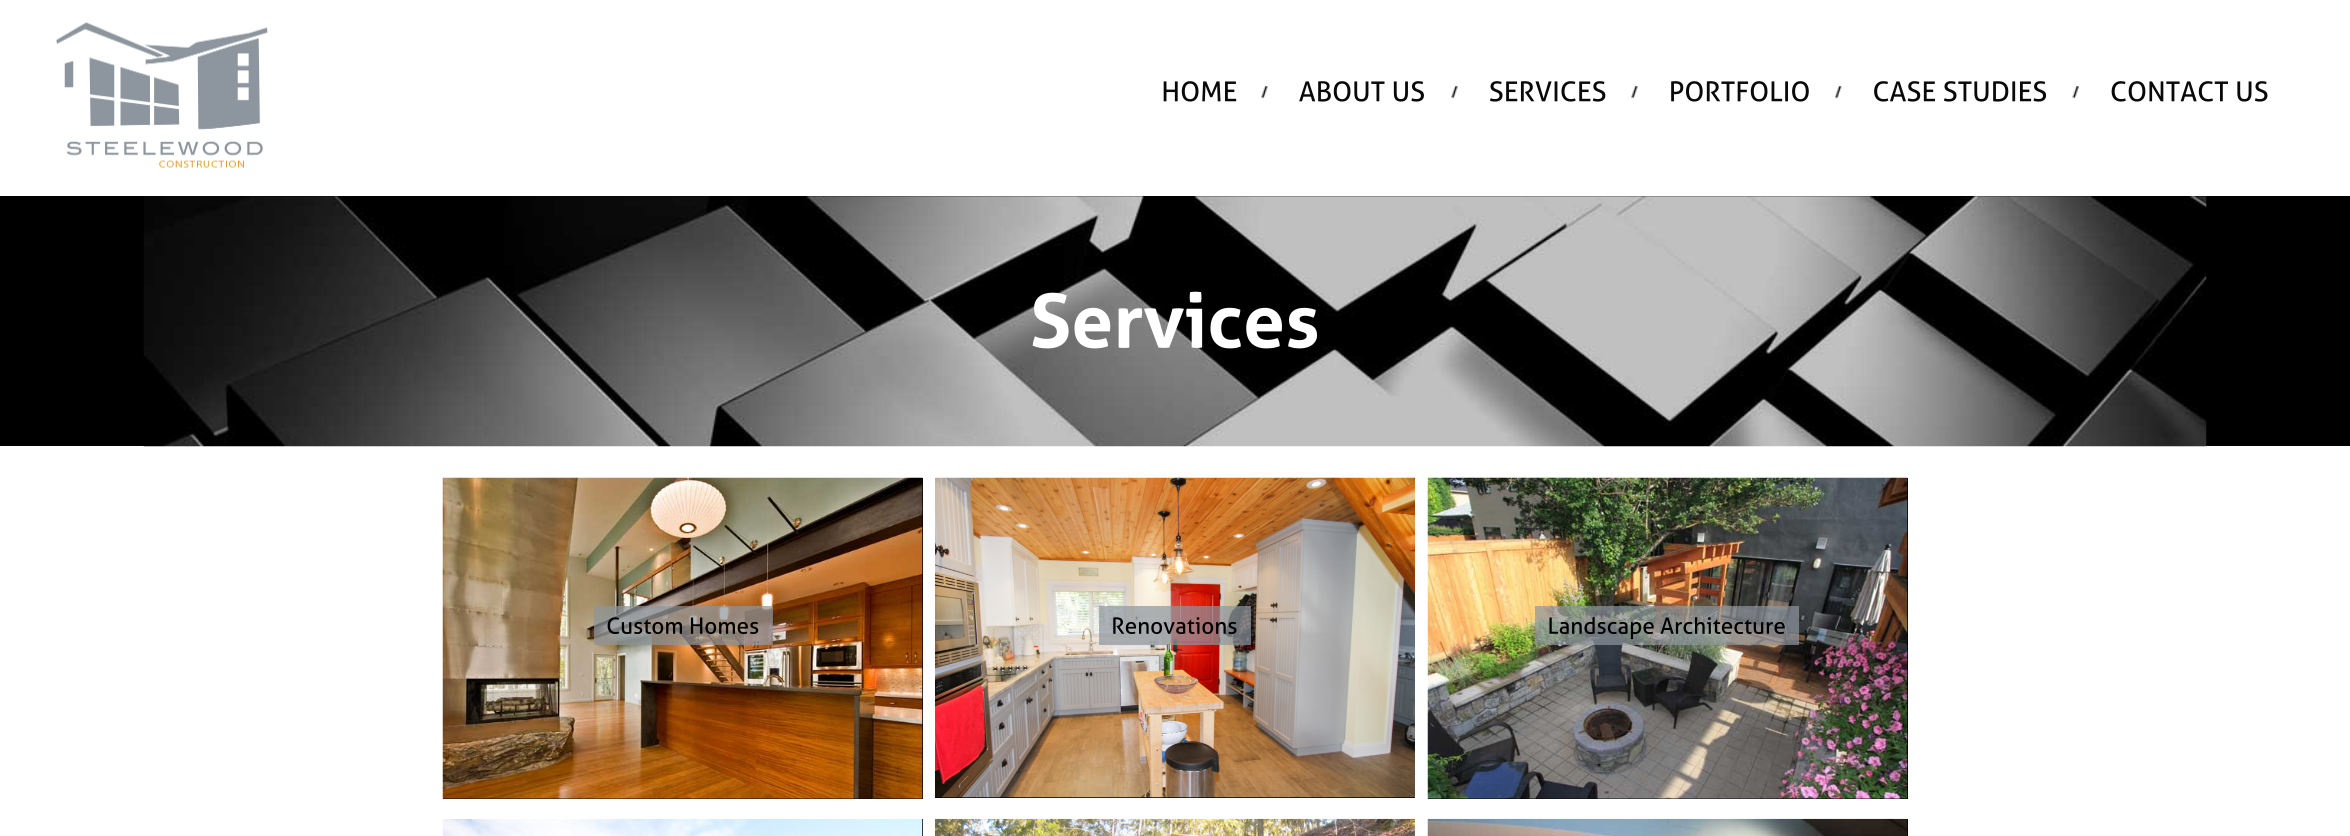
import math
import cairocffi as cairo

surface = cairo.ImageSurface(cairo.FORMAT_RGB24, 2350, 836)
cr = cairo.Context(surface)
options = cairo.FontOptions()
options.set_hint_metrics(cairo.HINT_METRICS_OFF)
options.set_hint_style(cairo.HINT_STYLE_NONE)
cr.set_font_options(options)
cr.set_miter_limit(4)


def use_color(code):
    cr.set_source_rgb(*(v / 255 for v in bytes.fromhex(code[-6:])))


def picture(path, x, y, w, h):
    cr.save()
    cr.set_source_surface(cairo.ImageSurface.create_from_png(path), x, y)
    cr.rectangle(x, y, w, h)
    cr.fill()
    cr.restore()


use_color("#ffffff")
cr.paint()
picture("img1.png", 56, 21, 212, 147)
picture("img2.png", 1261, 86, 7, 13)
picture("img3.png", 1163, 81, 74, 21)
picture("img2.png", 1451, 86, 7, 13)
picture("img4.png", 1299, 81, 125, 21)
picture("img2.png", 1631, 86, 7, 13)
picture("img5.png", 1490, 81, 116, 21)
picture("img6.png", 1835, 86, 7, 13)
picture("img7.png", 1671, 81, 138, 21)
picture("img8.png", 2072, 86, 7, 13)
picture("img9.png", 1874, 81, 173, 21)
picture("img10.png", 2111, 81, 157, 21)
use_color("#000000")
cr.rectangle(0, 196, 2350, 250)
cr.fill()
picture("img11.png", 143, 196, 2064, 251)
picture("img12.png", 1032, 291, 285, 58)
cr.rectangle(443, 478, 480, 321)
cr.fill()
picture("img13.png", 442, 477, 481, 322)
cr.set_source_rgba(0.553, 0.588, 0.62, 0.7)
cr.rectangle(594, 606, 179, 39)
cr.fill()
picture("img14.png", 607, 617, 152, 17)
use_color("#000000")
cr.rectangle(935, 797, 480, 1)
cr.fill()
picture("img15.png", 935, 477, 480, 321)
cr.set_source_rgba(0.553, 0.588, 0.62, 0.7)
cr.rectangle(1099, 606, 152, 39)
cr.fill()
picture("img16.png", 1113, 617, 124, 17)
use_color("#000000")
cr.rectangle(1428, 478, 480, 321)
cr.fill()
picture("img17.png", 1427, 477, 481, 322)
cr.set_source_rgba(0.553, 0.588, 0.62, 0.7)
cr.rectangle(1535, 606, 264, 39)
cr.fill()
picture("img18.png", 1549, 617, 236, 23)
use_color("#000000")
cr.rectangle(922, 819, 1, 17)
cr.fill()
picture("img19.png", 442, 819, 481, 17)
picture("img20.png", 935, 818, 480, 18)
cr.rectangle(1907, 819, 1, 17)
cr.fill()
picture("img21.png", 1427, 818, 481, 18)
surface.write_to_png("result.png")
